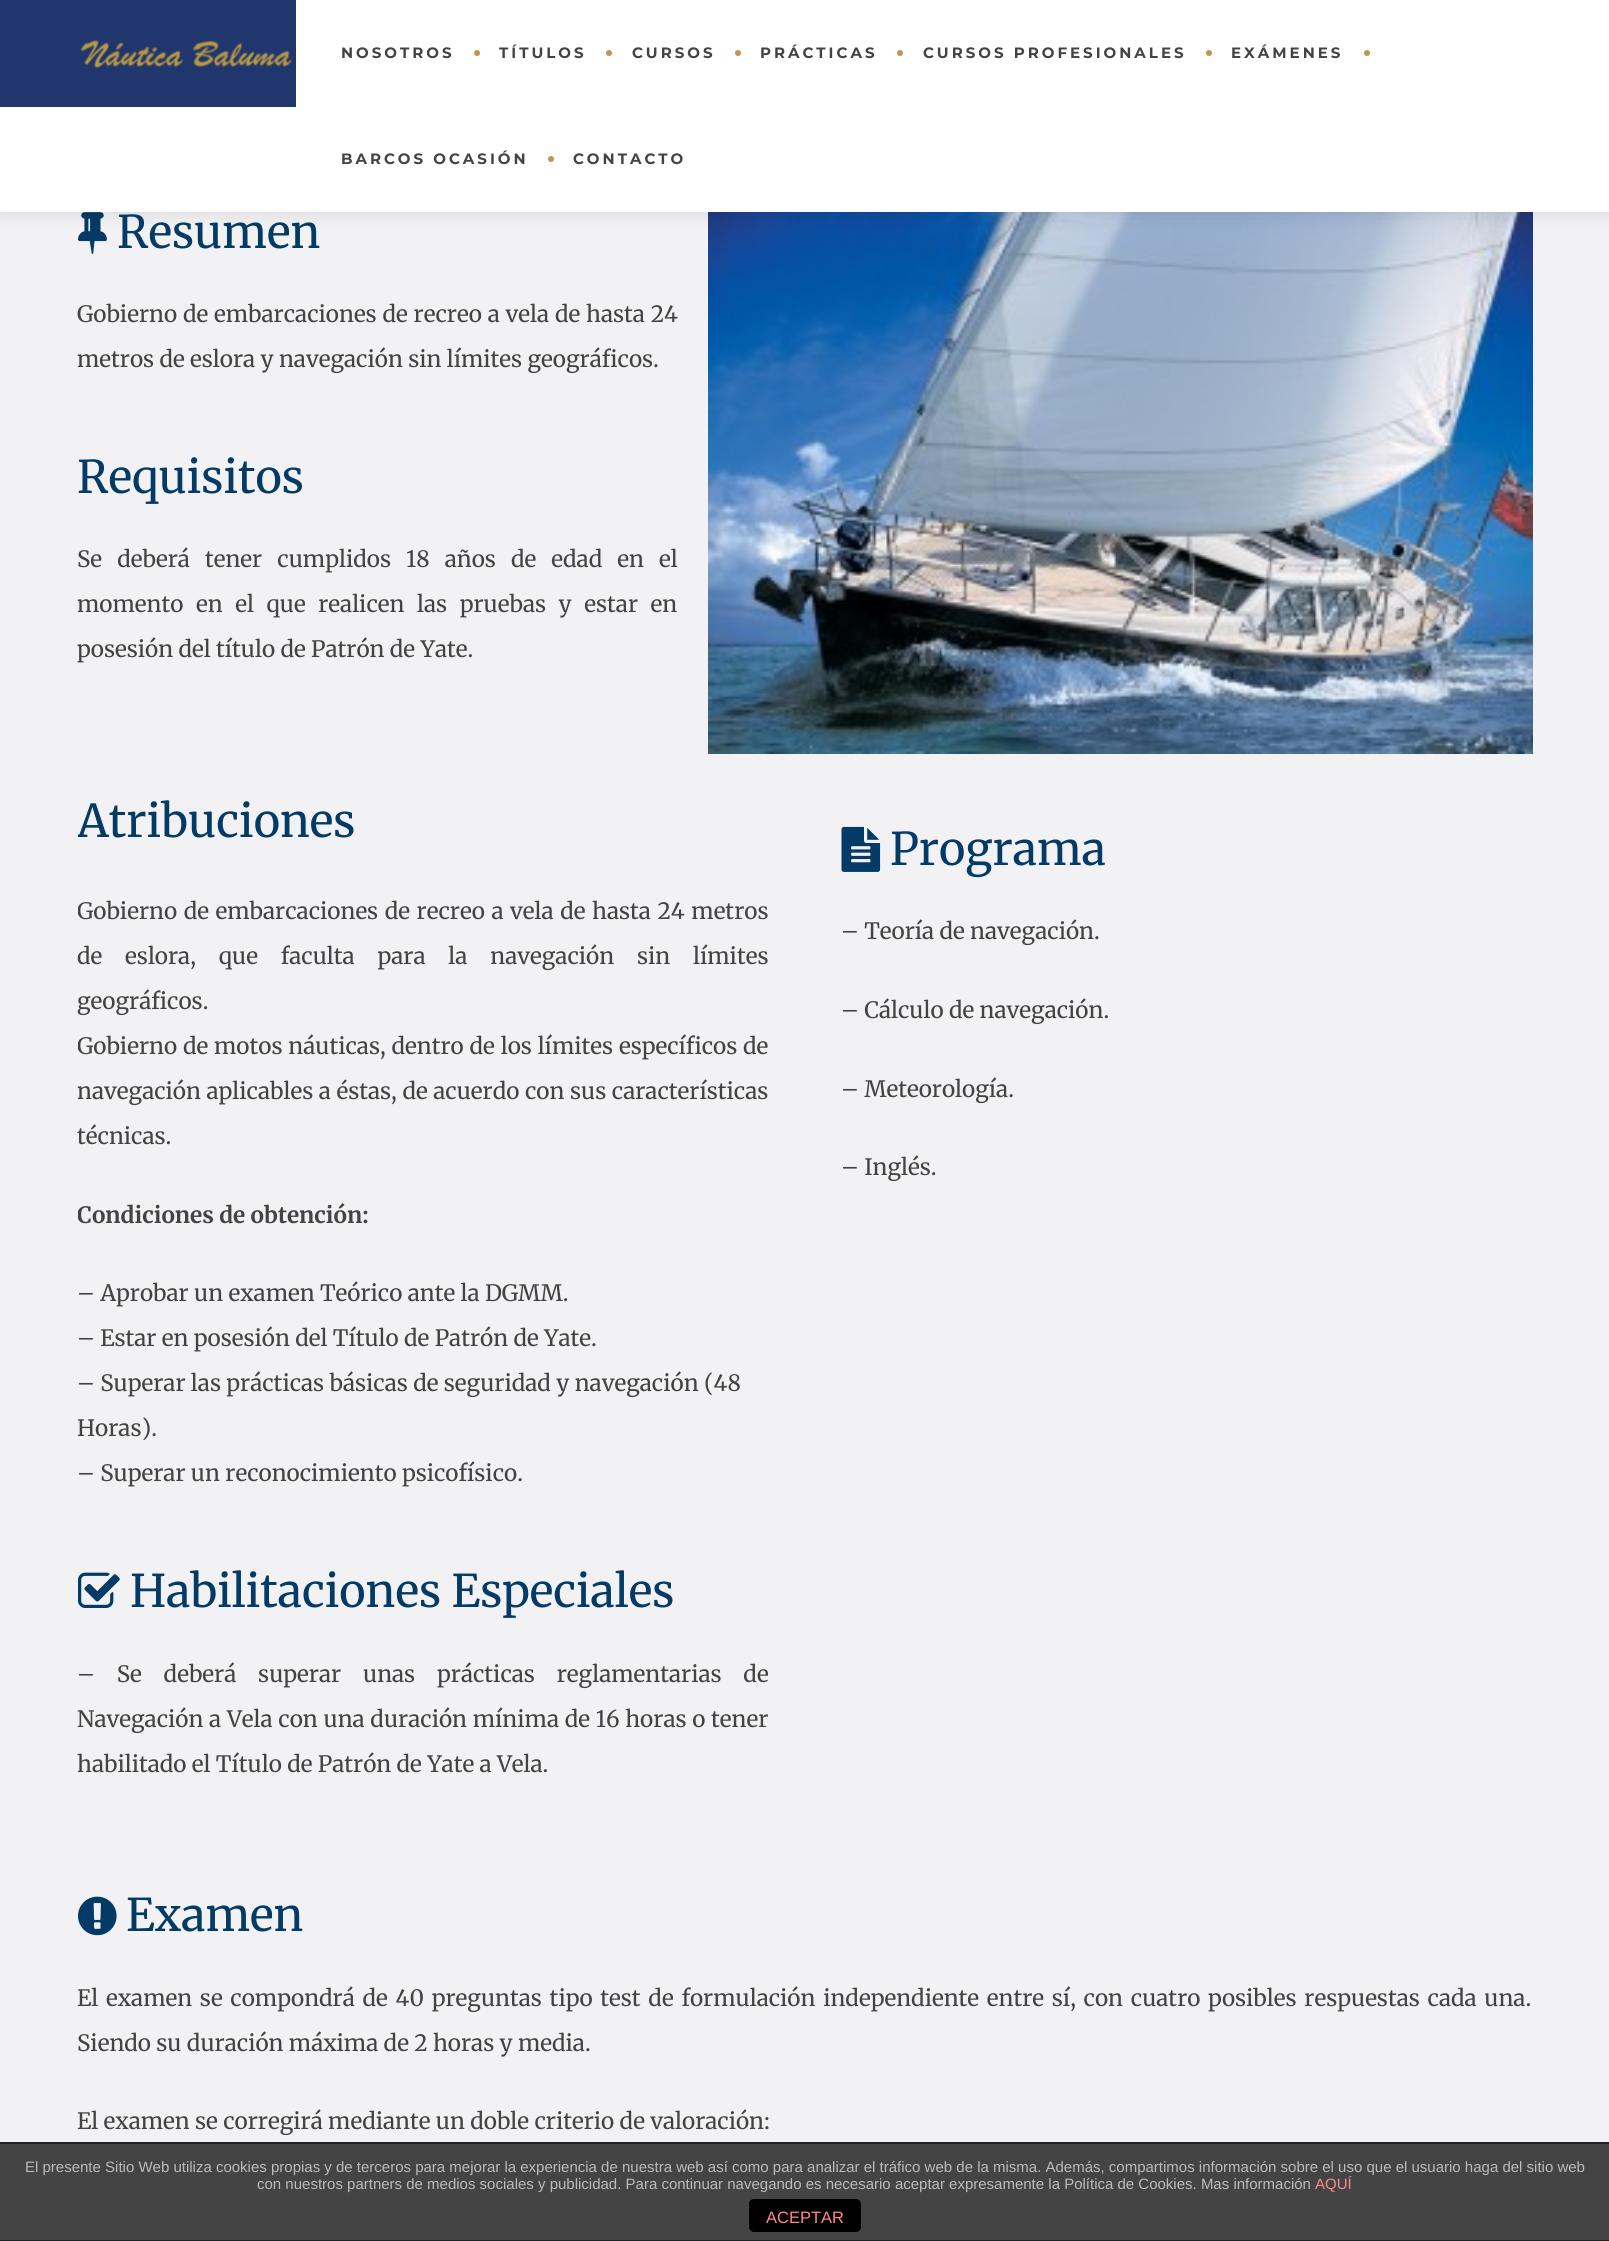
import math
import cairocffi as cairo

surface = cairo.ImageSurface(cairo.FORMAT_RGB24, 1609, 2241)
cr = cairo.Context(surface)
options = cairo.FontOptions()
options.set_hint_metrics(cairo.HINT_METRICS_OFF)
options.set_hint_style(cairo.HINT_STYLE_NONE)
cr.set_font_options(options)
cr.set_miter_limit(4)


def use_color(code):
    cr.set_source_rgb(*(v / 255 for v in bytes.fromhex(code[-6:])))


def spaced_text(x, y, s, letter, word):
    cr.move_to(x, y)
    for ch in s:
        cr.show_text(ch)
        cr.rel_move_to(letter + word * (ch == ' '), 0)


def round_rect(x, y, w, h, r):
    cr.new_sub_path()
    for i, (u, v) in enumerate([(x + w - r, y + h - r), (x + r, y + h - r), (x + r, y + r), (x + w - r, y + r)]):
        cr.arc(u, v, r, i * math.pi / 2, (i + 1) * math.pi / 2)
    cr.close_path()


def shadow(x, y, w, h, r, blur, alpha):
    cr.push_group_with_content(cairo.CONTENT_ALPHA)
    cr.set_operator(cairo.OPERATOR_SOURCE)
    for i in range(15, -16, -2):
        e = blur * i / 6
        if min(w, h) + 2 * e > 0:
            cr.set_source_rgba(0, 0, 0, alpha * math.erfc((i - 1) / 8.5) / 2)
            round_rect(x - e, y - e, w + 2 * e, h + 2 * e, max(0, min(r + e + blur * .6, min(w, h) / 2 + e)))
            cr.fill()
    cr.mask(cr.pop_group())


def picture(path, x, y, w, h):
    cr.save()
    cr.set_source_surface(cairo.ImageSurface.create_from_png(path), x, y)
    cr.rectangle(x, y, w, h)
    cr.fill()
    cr.restore()


use_color("#f2f2f4")
cr.paint()
picture("img2.png", 78, 212, 29, 42)
picture("img3.png", 708, 212, 825, 542)
use_color("#000000")
shadow(0, 3, 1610, 212, 0, 7.5, 0.1)
use_color("#ffffff")
cr.rectangle(0, 0, 1609, 212)
cr.fill()
use_color("#21366c")
cr.rectangle(0, 0, 296, 107)
cr.fill()
picture("img1.png", 80, 40, 212, 29)
cr.select_font_face("Montserrat", cairo.FONT_SLANT_NORMAL, cairo.FONT_WEIGHT_BOLD)
cr.set_font_size(15)
use_color("#444341")
spaced_text(341, 58, "NOSOTROS", 3, 0)
use_color("#c09551")
cr.new_path()
cr.arc(477, 53, 3, 0, 2 * math.pi)
cr.fill()
use_color("#444341")
spaced_text(499, 58, "TÍTULOS", 3, 0)
use_color("#c09551")
cr.new_path()
cr.arc(609, 53, 3, 0, 2 * math.pi)
cr.fill()
use_color("#444341")
spaced_text(632, 58, "CURSOS", 3, 0)
use_color("#c09551")
cr.new_path()
cr.arc(738, 53, 3, 0, 2 * math.pi)
cr.fill()
use_color("#444341")
spaced_text(760, 58, "PRÁCTICAS", 3, 0)
use_color("#c09551")
cr.new_path()
cr.arc(900, 53, 3, 0, 2 * math.pi)
cr.fill()
use_color("#444341")
spaced_text(923, 58, "CURSOS PROFESIONALES", 3, 0)
use_color("#c09551")
cr.new_path()
cr.arc(1209, 53, 3, 0, 2 * math.pi)
cr.fill()
use_color("#444341")
spaced_text(1231, 58, "EXÁMENES", 3, 0)
use_color("#c09551")
cr.new_path()
cr.arc(1367, 53, 3, 0, 2 * math.pi)
cr.fill()
use_color("#444341")
spaced_text(341, 164, "BARCOS OCASIÓN", 3, 0)
use_color("#c09551")
cr.new_path()
cr.arc(551, 159, 3, 0, 2 * math.pi)
cr.fill()
use_color("#444341")
spaced_text(573, 164, "CONTACTO", 3, 0)
cr.select_font_face("Merriweather")
cr.set_font_size(45)
use_color("#043b66")
cr.move_to(117, 248)
cr.show_text("Resumen")
cr.set_font_size(22.5)
use_color("#444341")
spaced_text(77, 322, "Gobierno de embarcaciones de recreo a vela de hasta 24", 0, 0.5)
cr.move_to(77, 367)
cr.show_text("metros de eslora y navegación sin límites geográficos.")
cr.set_font_size(45)
use_color("#043b66")
cr.move_to(77, 493)
cr.show_text("Requisitos")
cr.set_font_size(22.5)
use_color("#444341")
spaced_text(77, 567, "Se deberá tener cumplidos 18 años de edad en el", 0, 9.75)
spaced_text(77, 612, "momento en el que realicen las pruebas y estar en", 0, 7.25)
cr.move_to(77, 657)
cr.show_text("posesión del título de Patrón de Yate.")
cr.save()
cr.rectangle(78, 755, 1455, 1066)
cr.clip()
cr.set_font_size(45)
use_color("#043b66")
cr.move_to(77, 837)
cr.show_text("Atribuciones")
cr.set_font_size(22.5)
use_color("#444341")
spaced_text(77, 919, "Gobierno de embarcaciones de recreo a vela de hasta 24 metros", 0, 1.25)
cr.restore()
spaced_text(77, 964, "de eslora, que faculta para la navegación sin límites", 0, 17.5)
cr.move_to(77, 1009)
cr.show_text("geográficos.")
cr.save()
cr.rectangle(78, 755, 1455, 1066)
cr.clip()
spaced_text(77, 1054, "Gobierno de motos náuticas, dentro de los límites específicos de", 0, 0.5)
cr.restore()
spaced_text(77, 1099, "navegación aplicables a éstas, de acuerdo con sus características", 0, 0.25)
cr.move_to(77, 1144)
cr.show_text("técnicas.")
cr.save()
cr.rectangle(78, 755, 1455, 1066)
cr.clip()
cr.select_font_face("Merriweather", cairo.FONT_SLANT_NORMAL, cairo.FONT_WEIGHT_BOLD)
cr.move_to(77, 1223)
cr.show_text("Condiciones de obtención:")
cr.restore()
cr.move_to(77, 1301)
cr.show_text("– Aprobar un examen Teórico ante la DGMM.")
cr.move_to(77, 1346)
cr.show_text("– Estar en posesión del Título de Patrón de Yate.")
cr.move_to(77, 1391)
cr.show_text("– Superar las prácticas básicas de seguridad y navegación (48")
cr.move_to(77, 1436)
cr.show_text("Horas).")
cr.move_to(77, 1481)
cr.show_text("– Superar un reconocimiento psicofísico.")
picture("img4.png", 78, 1572, 42, 36)
cr.set_font_size(45)
use_color("#043b66")
cr.move_to(130, 1607)
cr.show_text("Habilitaciones Especiales")
cr.set_font_size(22.5)
use_color("#444341")
spaced_text(77, 1682, "– Se deberá superar unas prácticas reglamentarias de", 0, 16.5)
spaced_text(77, 1727, "Navegación a Vela con una duración mínima de 16 horas o tener", 0, 0.4)
cr.move_to(77, 1772)
cr.show_text("habilitado el Título de Patrón de Yate a Vela.")
picture("img5.png", 841, 826, 40, 46)
cr.set_font_size(45)
use_color("#043b66")
cr.move_to(890, 865)
cr.show_text("Programa")
cr.set_font_size(22.5)
use_color("#444341")
cr.move_to(841, 939)
cr.show_text("– Teoría de navegación.")
cr.move_to(841, 1018)
cr.show_text("– Cálculo de navegación.")
cr.move_to(841, 1097)
cr.show_text("– Meteorología.")
cr.move_to(841, 1175)
cr.show_text("– Inglés.")
picture("img6.png", 78, 1896, 39, 40)
cr.set_font_size(45)
use_color("#043b66")
cr.move_to(126, 1931)
cr.show_text("Examen")
cr.set_font_size(22.5)
use_color("#444341")
spaced_text(77, 2006, "El examen se compondrá de 40 preguntas tipo test de formulación independiente entre sí, con cuatro posibles respuestas cada una.", 0, 2.4)
cr.move_to(77, 2051)
cr.show_text("Siendo su duración máxima de 2 horas y media.")
cr.move_to(77, 2129)
cr.show_text("El examen se corregirá mediante un doble criterio de valoración:")
use_color("#444444")
cr.rectangle(0, 2144, 1609, 96)
cr.fill()
use_color("#222222")
cr.rectangle(0, 2142, 1609, 2)
cr.fill()
cr.rectangle(0, 2240, 1609, 1)
cr.fill()
cr.select_font_face("Liberation Sans")
cr.set_font_size(15)
use_color("#bbbbbb")
cr.move_to(25, 2172)
cr.show_text("El presente Sitio Web utiliza cookies propias y de terceros para mejorar la experiencia de nuestra web así como para analizar el tráfico web de la misma. Además, compartimos información sobre el uso que el usuario haga del sitio web")
cr.move_to(257, 2189)
cr.show_text("con nuestros partners de medios sociales y publicidad. Para continuar navegando es necesario aceptar expresamente la Política de Cookies. Mas información")
use_color("#ff8888")
cr.move_to(1315, 2189)
cr.show_text("AQUÍ")
use_color("#000000")
round_rect(749, 2199, 112, 33, 5)
cr.fill()
cr.set_font_size(16.5)
use_color("#ff8888")
cr.move_to(766, 2223)
cr.show_text("ACEPTAR")
surface.write_to_png("result.png")
